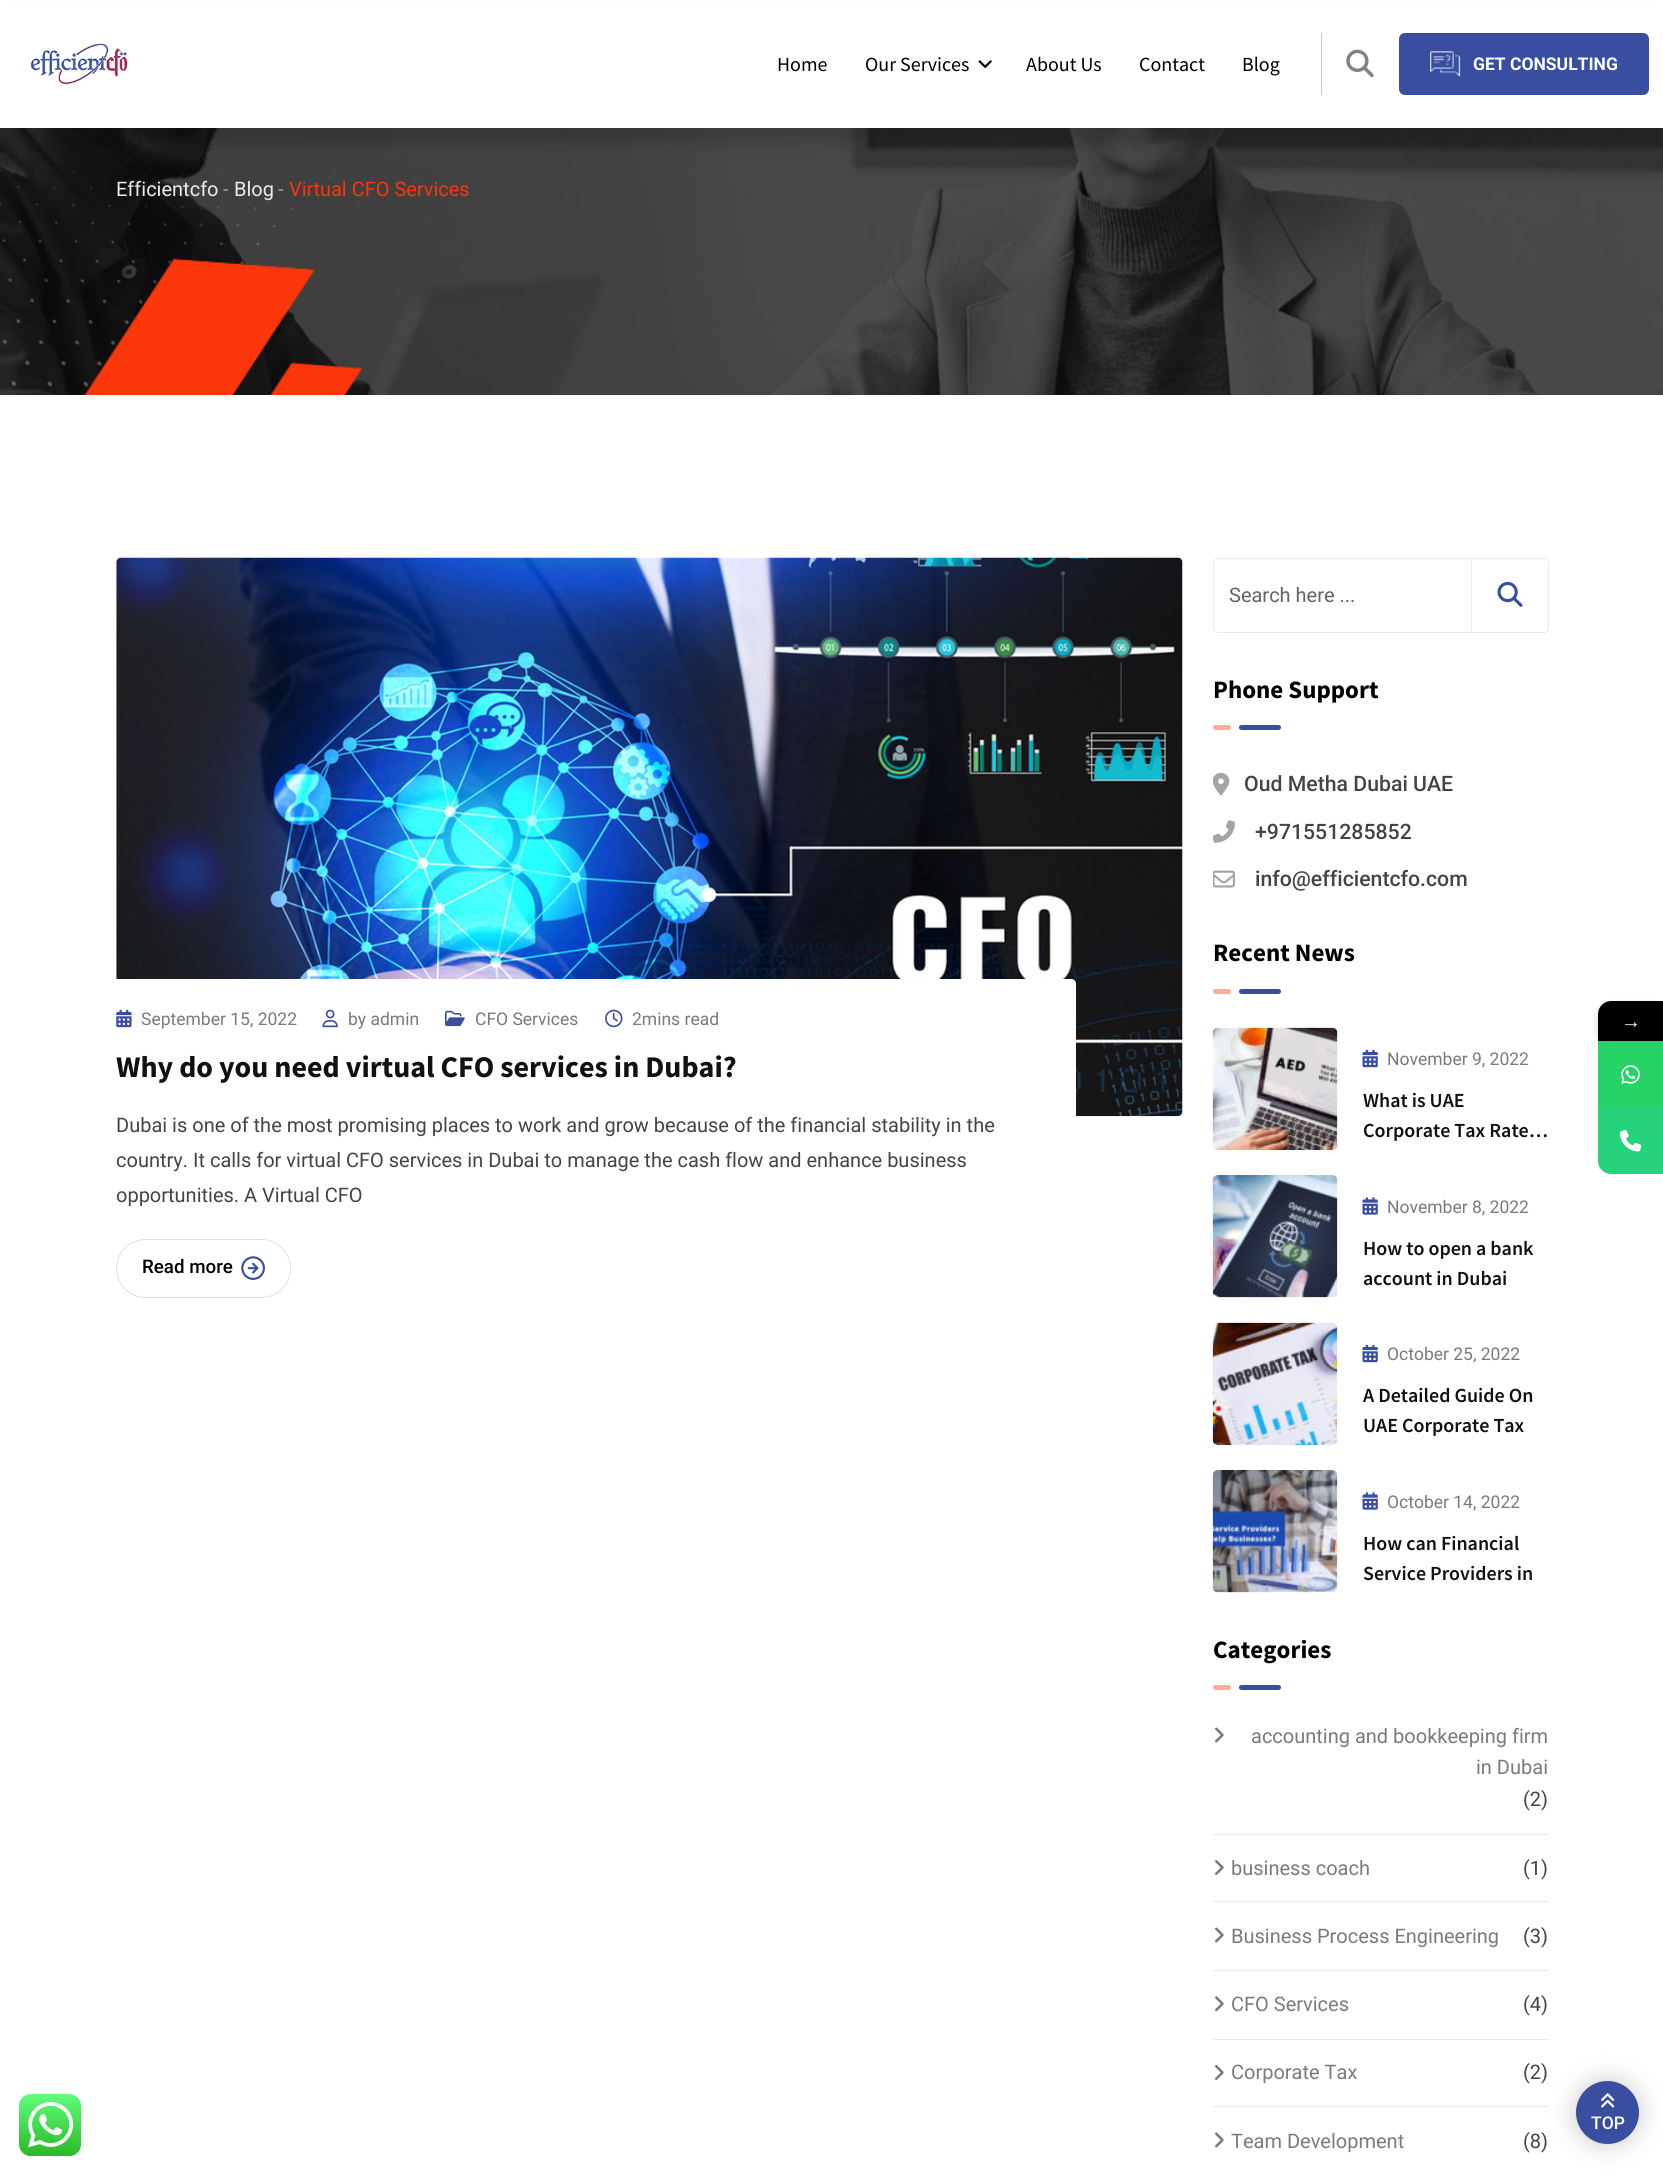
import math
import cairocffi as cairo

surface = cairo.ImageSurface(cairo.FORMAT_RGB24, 1663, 2174)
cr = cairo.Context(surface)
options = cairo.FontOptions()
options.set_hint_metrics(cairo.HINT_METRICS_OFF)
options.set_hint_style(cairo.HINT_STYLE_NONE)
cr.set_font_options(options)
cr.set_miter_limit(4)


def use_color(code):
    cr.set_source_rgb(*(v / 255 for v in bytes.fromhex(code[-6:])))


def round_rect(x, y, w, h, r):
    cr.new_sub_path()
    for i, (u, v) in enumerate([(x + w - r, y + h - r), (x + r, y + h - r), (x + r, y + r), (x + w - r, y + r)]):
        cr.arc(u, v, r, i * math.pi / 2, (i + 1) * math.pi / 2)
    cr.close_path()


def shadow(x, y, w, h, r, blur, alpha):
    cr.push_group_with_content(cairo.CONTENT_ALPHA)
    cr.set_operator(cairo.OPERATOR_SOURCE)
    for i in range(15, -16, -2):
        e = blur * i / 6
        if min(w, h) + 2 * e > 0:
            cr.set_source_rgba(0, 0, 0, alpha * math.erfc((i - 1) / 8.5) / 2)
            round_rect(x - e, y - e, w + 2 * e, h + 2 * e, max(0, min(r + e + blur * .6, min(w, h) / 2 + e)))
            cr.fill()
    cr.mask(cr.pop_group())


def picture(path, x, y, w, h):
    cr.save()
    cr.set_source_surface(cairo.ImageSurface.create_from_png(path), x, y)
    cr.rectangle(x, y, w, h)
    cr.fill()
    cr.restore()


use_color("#ffffff")
cr.paint()
picture("img5.png", 0, 128, 1663, 267)
use_color("#000000")
shadow(0, 15, 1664, 128, 0, 7.5, 0.16)
use_color("#ffffff")
cr.rectangle(0, 4, 1663, 124)
cr.fill()
picture("img1.png", 30, 43, 98, 42)
cr.select_font_face("Source Sans Pro")
cr.set_font_size(20)
use_color("#000000")
cr.move_to(777, 71)
cr.show_text("Home")
cr.move_to(865, 71)
cr.show_text("Our Services")
picture("img2.png", 978, 60, 14, 8)
cr.move_to(1026, 71)
cr.show_text("About Us")
cr.move_to(1139, 71)
cr.show_text("Contact")
cr.move_to(1242, 71)
cr.show_text("Blog")
use_color("#c9c9c9")
cr.rectangle(1321, 33, 1, 62)
cr.fill()
picture("img3.png", 1346, 49, 28, 29)
use_color("#3a4ea1")
round_rect(1399, 33, 250, 62, 6)
cr.fill()
picture("img4.png", 1430, 51, 31, 26)
cr.select_font_face("Roboto", cairo.FONT_SLANT_NORMAL, cairo.FONT_WEIGHT_BOLD)
cr.set_font_size(17.5)
use_color("#ffffff")
cr.move_to(1473, 70)
cr.show_text("GET CONSULTING")
cr.select_font_face("Roboto")
cr.set_font_size(20)
use_color("#ebebeb")
cr.move_to(116, 196)
cr.show_text("Efficientcfo")
use_color("#a6a6a6")
cr.move_to(223, 196)
cr.show_text("-")
use_color("#ebebeb")
cr.move_to(234, 196)
cr.show_text("Blog")
use_color("#a6a6a6")
cr.move_to(278, 196)
cr.show_text("-")
use_color("#fa360a")
cr.move_to(289, 196)
cr.show_text("Virtual CFO Services")
picture("img6.png", 84, 258, 279, 137)
picture("img7.png", 116, 557, 1067, 560)
use_color("#ffffff")
cr.new_path()
cr.move_to(116, 979)
cr.line_to(1071, 979)
cr.curve_to(1074, 979, 1076, 981, 1076, 984)
cr.line_to(1076, 1298)
cr.line_to(116, 1298)
cr.close_path()
cr.fill()
picture("img8.png", 116, 1009, 16, 19)
cr.set_font_size(17.5)
use_color("#7a7a7a")
cr.move_to(141, 1025)
cr.show_text("September 15, 2022")
picture("img9.png", 322, 1009, 16, 19)
cr.move_to(348, 1025)
cr.show_text("by admin")
picture("img10.png", 445, 1010, 20, 17)
cr.move_to(475, 1025)
cr.show_text("CFO Services")
picture("img11.png", 605, 1009, 18, 19)
cr.move_to(632, 1025)
cr.show_text("2mins read")
cr.select_font_face("Source Sans Pro", cairo.FONT_SLANT_NORMAL, cairo.FONT_WEIGHT_BOLD)
cr.set_font_size(30)
use_color("#111111")
cr.move_to(116, 1077)
cr.show_text("Why do you need virtual CFO services in Dubai?")
cr.select_font_face("Roboto")
cr.set_font_size(20)
use_color("#444444")
cr.move_to(116, 1132)
cr.show_text("Dubai is one of the most promising places to work and grow because of the financial stability in the")
cr.move_to(116, 1167)
cr.show_text("country. It calls for virtual CFO services in Dubai to manage the cash flow and enhance business")
cr.move_to(116, 1202)
cr.show_text("opportunities. A Virtual CFO")
round_rect(116.5, 1239.5, 174, 58, 29)
use_color("#dfdfdf")
cr.set_line_width(1)
cr.stroke()
cr.select_font_face("Roboto Medium")
cr.set_font_size(18.75)
use_color("#000000")
cr.move_to(142, 1273)
cr.show_text("Read more")
picture("img12.png", 241, 1256, 24, 24)
cr.new_path()
cr.move_to(1218, 558.5)
cr.line_to(1472.5, 558.5)
cr.line_to(1472.5, 632.5)
cr.line_to(1218, 632.5)
cr.curve_to(1215.5, 632.5, 1213.5, 630.5, 1213.5, 628)
cr.line_to(1213.5, 563)
cr.curve_to(1213.5, 560.5, 1215.5, 558.5, 1218, 558.5)
cr.close_path()
use_color("#ebebeb")
cr.stroke()
cr.select_font_face("Roboto")
cr.set_font_size(20)
use_color("#646464")
cr.move_to(1229, 602)
cr.show_text("Search here ...")
use_color("#ffffff")
cr.new_path()
cr.move_to(1471.5, 558.5)
cr.line_to(1544, 558.5)
cr.curve_to(1546.5, 558.5, 1548.5, 560.5, 1548.5, 563)
cr.line_to(1548.5, 628)
cr.curve_to(1548.5, 630.5, 1546.5, 632.5, 1544, 632.5)
cr.line_to(1471.5, 632.5)
cr.close_path()
cr.fill_preserve()
use_color("#ebebeb")
cr.stroke()
picture("img13.png", 1497, 581, 26, 26)
cr.select_font_face("Source Sans Pro", cairo.FONT_SLANT_NORMAL, cairo.FONT_WEIGHT_BOLD)
cr.set_font_size(25)
use_color("#000000")
cr.move_to(1213, 698)
cr.show_text("Phone Support")
use_color("#ffa996")
round_rect(1213, 725, 18, 5, 2.5)
cr.fill()
use_color("#3a4ea1")
round_rect(1239, 725, 42, 5, 2.5)
cr.fill()
picture("img14.png", 1213, 772, 17, 24)
cr.select_font_face("Roboto Medium")
cr.set_font_size(21.25)
use_color("#444444")
cr.move_to(1244, 791)
cr.show_text("Oud Metha Dubai UAE")
picture("img15.png", 1213, 820, 22, 23)
cr.move_to(1255, 839)
cr.show_text("+971551285852")
picture("img16.png", 1213, 870, 22, 18)
cr.move_to(1255, 886)
cr.show_text("info@efficientcfo.com")
cr.select_font_face("Source Sans Pro", cairo.FONT_SLANT_NORMAL, cairo.FONT_WEIGHT_BOLD)
cr.set_font_size(25)
use_color("#000000")
cr.move_to(1213, 961)
cr.show_text("Recent News")
use_color("#ffa996")
round_rect(1213, 989, 18, 5, 2.5)
cr.fill()
use_color("#3a4ea1")
round_rect(1239, 989, 42, 5, 2.5)
cr.fill()
picture("img17.png", 1212, 1027, 126, 123)
picture("img18.png", 1362, 1049, 16, 19)
cr.select_font_face("Roboto")
cr.set_font_size(17.5)
use_color("#7a7a7a")
cr.move_to(1387, 1065)
cr.show_text("November 9, 2022")
cr.select_font_face("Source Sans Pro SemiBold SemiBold")
cr.set_font_size(20)
use_color("#111111")
cr.move_to(1363, 1107)
cr.show_text("What is UAE")
cr.move_to(1363, 1137)
cr.show_text("Corporate Tax Rate…")
picture("img19.png", 1212, 1175, 126, 123)
picture("img20.png", 1362, 1197, 16, 18)
cr.select_font_face("Roboto")
cr.set_font_size(17.5)
use_color("#7a7a7a")
cr.move_to(1387, 1213)
cr.show_text("November 8, 2022")
cr.select_font_face("Source Sans Pro SemiBold SemiBold")
cr.set_font_size(20)
use_color("#111111")
cr.move_to(1363, 1255)
cr.show_text("How to open a bank")
cr.move_to(1363, 1285)
cr.show_text("account in Dubai")
picture("img21.png", 1212, 1322, 126, 123)
picture("img18.png", 1362, 1344, 16, 19)
cr.select_font_face("Roboto")
cr.set_font_size(17.5)
use_color("#7a7a7a")
cr.move_to(1387, 1360)
cr.show_text("October 25, 2022")
cr.select_font_face("Source Sans Pro SemiBold SemiBold")
cr.set_font_size(20)
use_color("#111111")
cr.move_to(1363, 1402)
cr.show_text("A Detailed Guide On")
cr.move_to(1363, 1432)
cr.show_text("UAE Corporate Tax")
picture("img22.png", 1212, 1470, 126, 123)
picture("img20.png", 1362, 1492, 16, 18)
cr.select_font_face("Roboto")
cr.set_font_size(17.5)
use_color("#7a7a7a")
cr.move_to(1387, 1508)
cr.show_text("October 14, 2022")
cr.select_font_face("Source Sans Pro SemiBold SemiBold")
cr.set_font_size(20)
use_color("#111111")
cr.move_to(1363, 1550)
cr.show_text("How can Financial")
cr.move_to(1363, 1580)
cr.show_text("Service Providers in")
cr.select_font_face("Source Sans Pro", cairo.FONT_SLANT_NORMAL, cairo.FONT_WEIGHT_BOLD)
cr.set_font_size(25)
use_color("#000000")
cr.move_to(1213, 1658)
cr.show_text("Categories")
use_color("#ffa996")
round_rect(1213, 1685, 18, 5, 2.5)
cr.fill()
use_color("#3a4ea1")
round_rect(1239, 1685, 42, 5, 2.5)
cr.fill()
use_color("#ebebeb")
cr.rectangle(1213, 1834, 336, 1)
cr.fill()
picture("img23.png", 1215, 1727, 9, 16)
cr.select_font_face("Roboto")
cr.set_font_size(20)
use_color("#7a7a7a")
cr.move_to(1251, 1743)
cr.show_text("accounting and bookkeeping firm")
cr.move_to(1476, 1774)
cr.show_text("in Dubai")
use_color("#444444")
cr.move_to(1523, 1806)
cr.show_text("(2)")
use_color("#ebebeb")
cr.rectangle(1213, 1901, 336, 1)
cr.fill()
picture("img24.png", 1215, 1860, 9, 15)
use_color("#7a7a7a")
cr.move_to(1231, 1875)
cr.show_text("business coach")
use_color("#444444")
cr.move_to(1523, 1875)
cr.show_text("(1)")
use_color("#ebebeb")
cr.rectangle(1213, 1970, 336, 1)
cr.fill()
picture("img23.png", 1215, 1927, 9, 16)
use_color("#7a7a7a")
cr.move_to(1231, 1943)
cr.show_text("Business Process Engineering")
use_color("#444444")
cr.move_to(1523, 1943)
cr.show_text("(3)")
use_color("#ebebeb")
cr.rectangle(1213, 2039, 336, 1)
cr.fill()
picture("img25.png", 1215, 1996, 9, 16)
use_color("#7a7a7a")
cr.move_to(1231, 2011)
cr.show_text("CFO Services")
use_color("#444444")
cr.move_to(1523, 2011)
cr.show_text("(4)")
use_color("#ebebeb")
cr.rectangle(1213, 2106, 336, 1)
cr.fill()
picture("img24.png", 1215, 2065, 9, 15)
use_color("#7a7a7a")
cr.move_to(1231, 2079)
cr.show_text("Corporate Tax")
use_color("#444444")
cr.move_to(1523, 2079)
cr.show_text("(2)")
picture("img23.png", 1215, 2132, 9, 16)
use_color("#7a7a7a")
cr.move_to(1231, 2148)
cr.show_text("Team Development")
use_color("#444444")
cr.move_to(1523, 2148)
cr.show_text("(8)")
use_color("#000000")
shadow(1598, 1005, 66, 40, 13, 4, 0.16)
use_color("#000000")
cr.new_path()
cr.move_to(1611, 1001)
cr.line_to(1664, 1001)
cr.line_to(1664, 1041)
cr.line_to(1598, 1041)
cr.line_to(1598, 1014)
cr.curve_to(1598, 1007, 1604, 1001, 1611, 1001)
cr.close_path()
cr.fill()
cr.select_font_face("Liberation Serif")
use_color("#ffffff")
cr.move_to(1621, 1028)
cr.show_text("→")
use_color("#26d367")
cr.rectangle(1598, 1041, 65, 67)
cr.fill()
picture("img26.png", 1621, 1065, 19, 19)
use_color("#26d37c")
cr.new_path()
cr.move_to(1598, 1108)
cr.line_to(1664, 1108)
cr.line_to(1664, 1174)
cr.line_to(1611, 1174)
cr.curve_to(1604, 1174, 1598, 1168, 1598, 1161)
cr.close_path()
cr.fill()
picture("img27.png", 1620, 1130, 22, 22)
picture("img28.png", 19, 2094, 62, 62)
use_color("#000000")
shadow(1576, 2081, 63, 63, 31.5, 12.5, 0.2)
use_color("#3a4ea1")
cr.arc(1607.5, 2112.5, 31.5, 0, 2 * math.pi)
cr.fill()
picture("img29.png", 1601, 2093, 14, 15)
cr.select_font_face("Roboto Medium")
cr.set_font_size(17.5)
use_color("#ffffff")
cr.move_to(1591, 2129)
cr.show_text("TOP")
surface.write_to_png("result.png")
